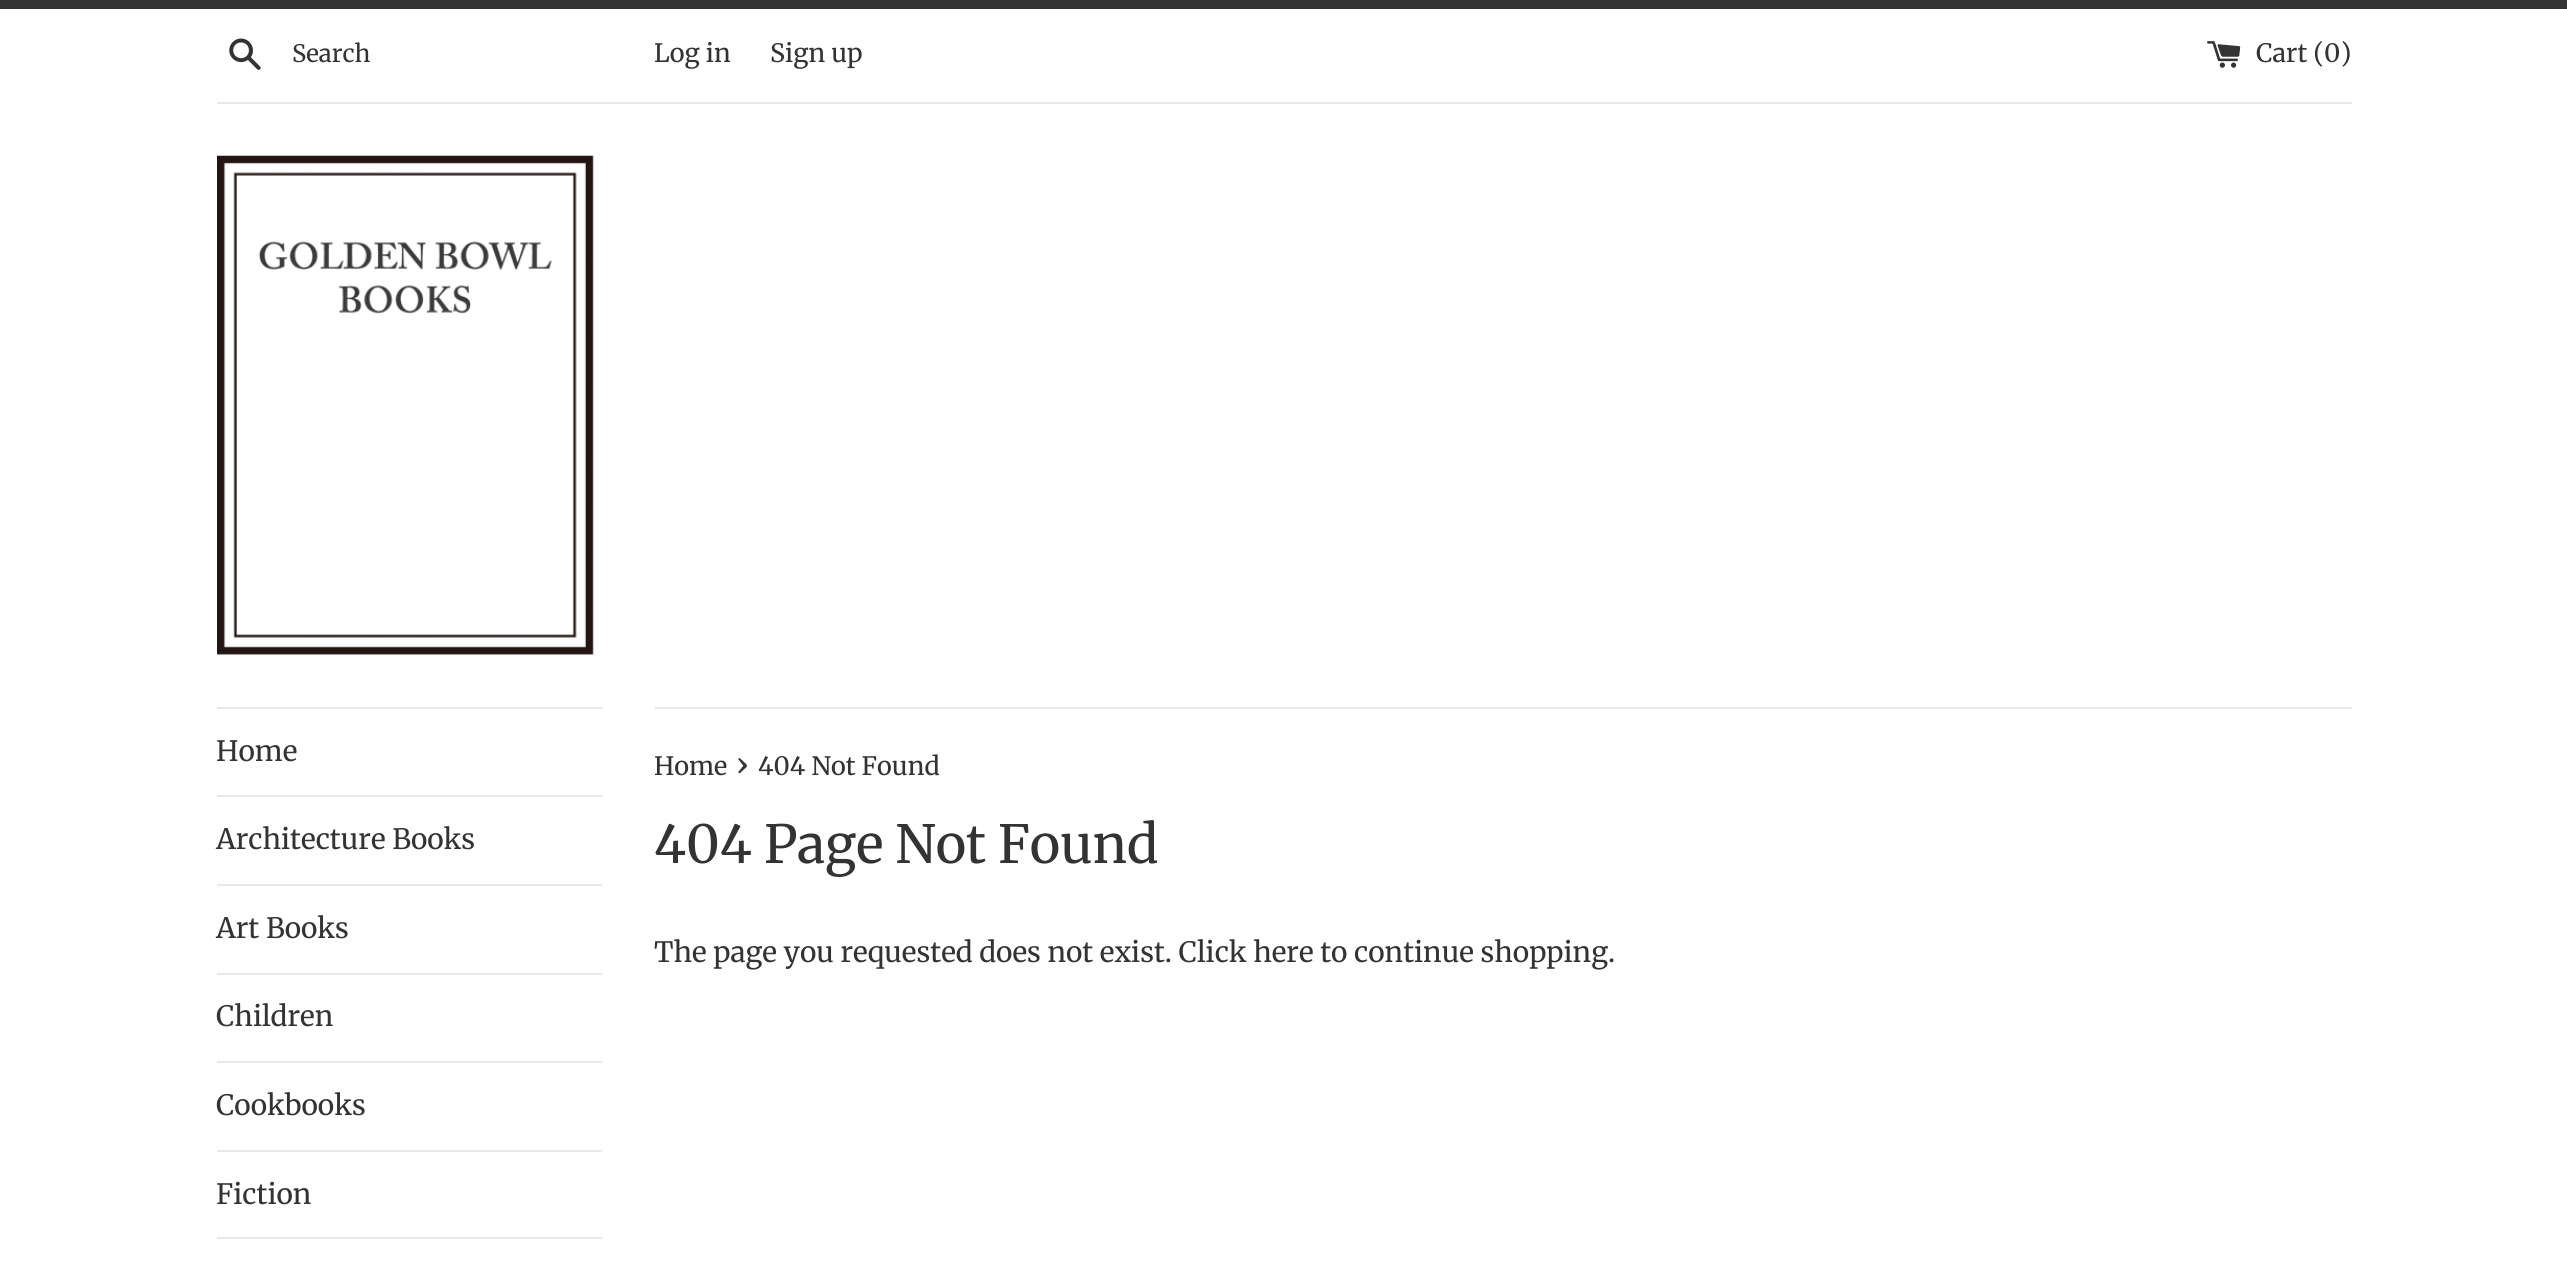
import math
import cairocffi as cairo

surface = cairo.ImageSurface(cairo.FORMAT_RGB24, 2567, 1273)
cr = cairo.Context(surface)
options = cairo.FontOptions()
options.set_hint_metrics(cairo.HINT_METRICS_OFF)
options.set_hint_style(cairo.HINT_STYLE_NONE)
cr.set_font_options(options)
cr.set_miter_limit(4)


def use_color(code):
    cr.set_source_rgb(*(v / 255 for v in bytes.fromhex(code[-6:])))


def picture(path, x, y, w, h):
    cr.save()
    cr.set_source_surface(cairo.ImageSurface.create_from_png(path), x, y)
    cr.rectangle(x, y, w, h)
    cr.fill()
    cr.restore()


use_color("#ffffff")
cr.paint()
use_color("#333333")
cr.rectangle(0, 0, 2567, 9)
cr.fill()
picture("img1.png", 229, 38, 32, 32)
cr.select_font_face("Merriweather")
cr.set_font_size(24)
cr.move_to(292, 62)
cr.show_text("Search")
cr.set_font_size(25.25)
cr.move_to(654, 62)
cr.show_text("Log in")
cr.move_to(770, 62)
cr.show_text("Sign up")
picture("img2.png", 2207, 41, 34, 27)
cr.move_to(2256, 62)
cr.show_text("Cart (0)")
use_color("#e8e8e8")
cr.rectangle(217, 102, 2135, 2)
cr.fill()
picture("img3.png", 217, 155, 377, 500)
cr.rectangle(217, 707, 385, 2)
cr.fill()
cr.rectangle(217, 795, 385, 2)
cr.fill()
cr.set_font_size(28)
use_color("#333333")
cr.move_to(216, 761)
cr.show_text("Home")
use_color("#e8e8e8")
cr.rectangle(217, 884, 385, 2)
cr.fill()
use_color("#333333")
cr.move_to(216, 849)
cr.show_text("Architecture Books")
use_color("#e8e8e8")
cr.rectangle(217, 973, 385, 2)
cr.fill()
use_color("#333333")
cr.move_to(216, 938)
cr.show_text("Art Books")
use_color("#e8e8e8")
cr.rectangle(217, 1061, 385, 2)
cr.fill()
use_color("#333333")
cr.move_to(216, 1026)
cr.show_text("Children")
use_color("#e8e8e8")
cr.rectangle(217, 1150, 385, 2)
cr.fill()
use_color("#333333")
cr.move_to(216, 1115)
cr.show_text("Cookbooks")
use_color("#e8e8e8")
cr.rectangle(217, 1237, 385, 2)
cr.fill()
use_color("#333333")
cr.move_to(216, 1204)
cr.show_text("Fiction")
use_color("#e8e8e8")
cr.rectangle(655, 707, 1697, 2)
cr.fill()
cr.set_font_size(25.25)
use_color("#333333")
cr.move_to(654, 775)
cr.show_text("Home")
cr.set_font_size(31)
cr.move_to(736, 775)
cr.show_text("›")
cr.set_font_size(25.25)
cr.move_to(758, 775)
cr.show_text("404 Not Found")
cr.select_font_face("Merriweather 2")
cr.set_font_size(52.5)
cr.move_to(654, 863)
cr.show_text("404 Page Not Found")
cr.select_font_face("Merriweather")
cr.set_font_size(28)
cr.move_to(654, 962)
cr.show_text("The page you requested does not exist. Click here to continue shopping.")
surface.write_to_png("result.png")
